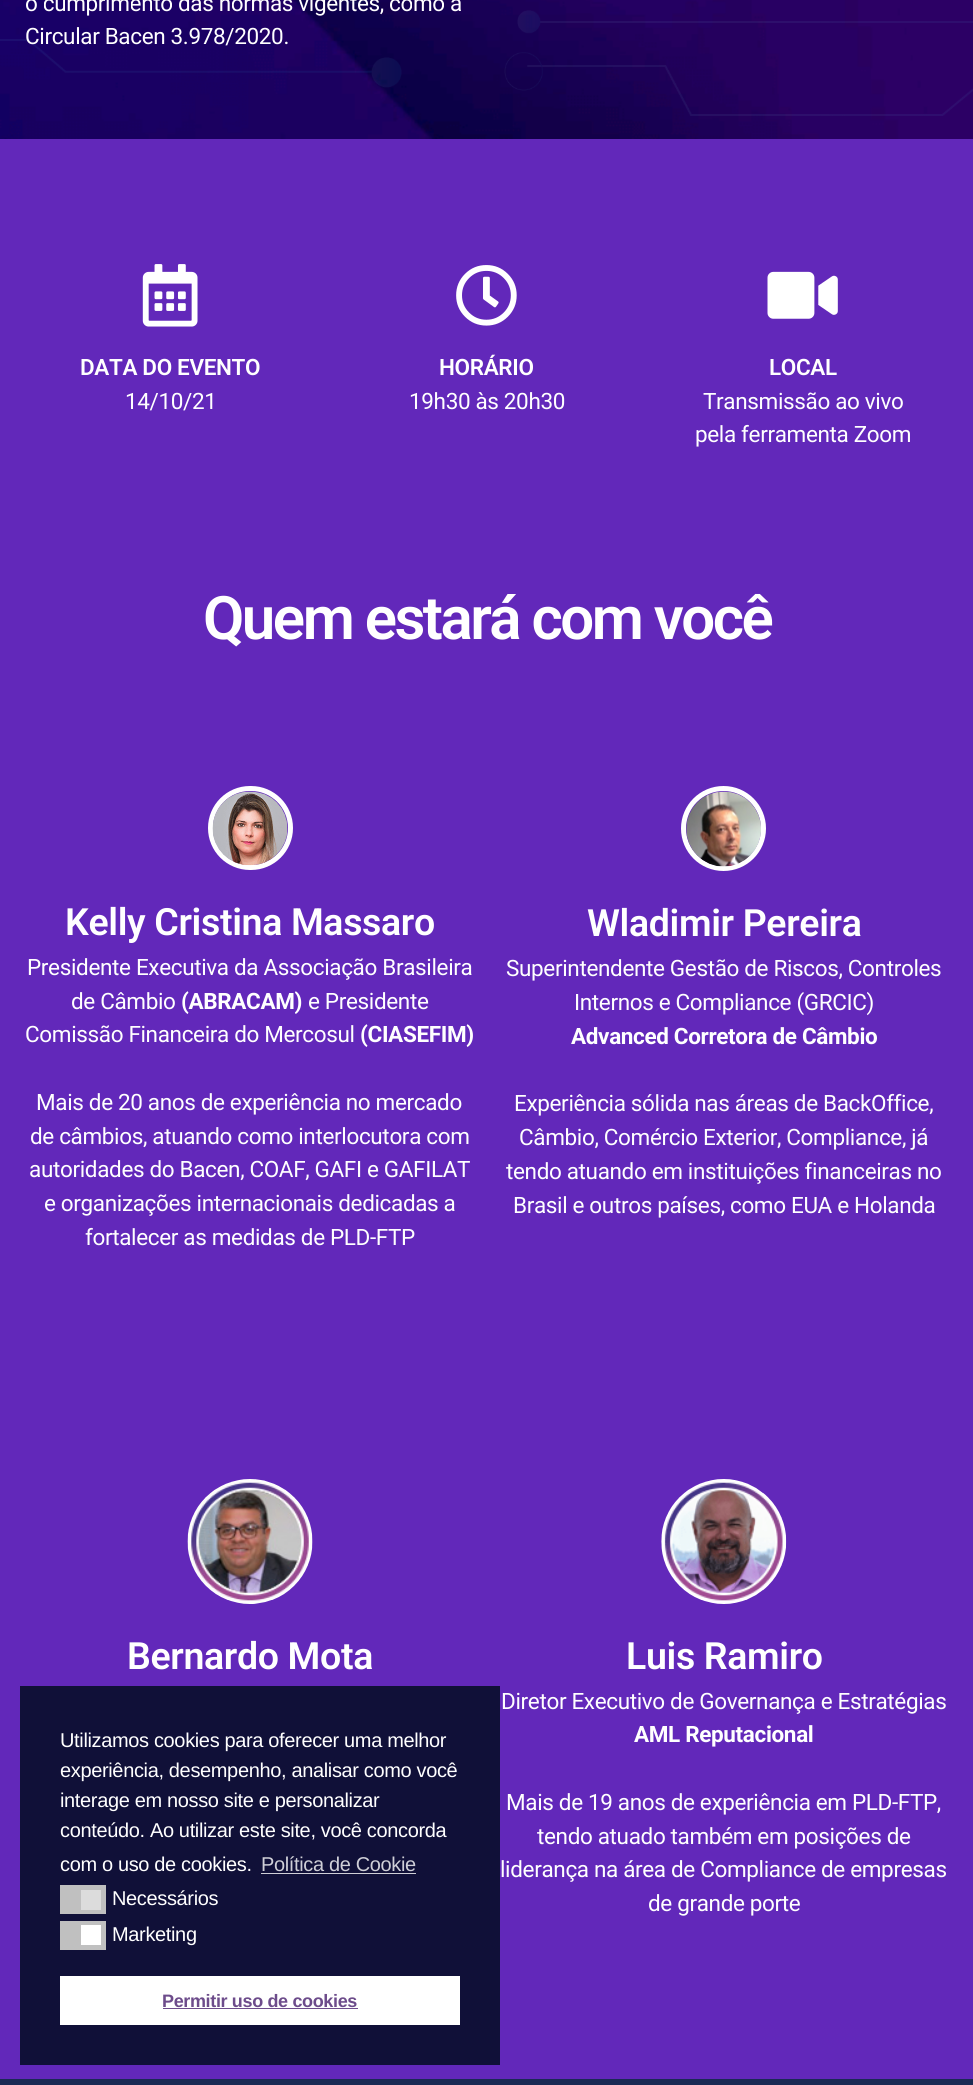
import math
import cairocffi as cairo

surface = cairo.ImageSurface(cairo.FORMAT_RGB24, 973, 2085)
cr = cairo.Context(surface)
options = cairo.FontOptions()
options.set_hint_metrics(cairo.HINT_METRICS_OFF)
options.set_hint_style(cairo.HINT_STYLE_NONE)
cr.set_font_options(options)
cr.set_miter_limit(4)


def use_color(code):
    cr.set_source_rgb(*(v / 255 for v in bytes.fromhex(code[-6:])))


def spaced_text(x, y, s, letter, word):
    cr.move_to(x, y)
    for ch in s:
        cr.show_text(ch)
        cr.rel_move_to(letter + word * (ch == ' '), 0)


def round_rect(x, y, w, h, r):
    cr.new_sub_path()
    for i, (u, v) in enumerate([(x + w - r, y + h - r), (x + r, y + h - r), (x + r, y + r), (x + w - r, y + r)]):
        cr.arc(u, v, r, i * math.pi / 2, (i + 1) * math.pi / 2)
    cr.close_path()


def picture(path, x, y, w, h):
    cr.save()
    cr.set_source_surface(cairo.ImageSurface.create_from_png(path), x, y)
    cr.rectangle(x, y, w, h)
    cr.fill()
    cr.restore()


use_color("#ffffff")
cr.paint()
picture("img1.png", 0, 0, 973, 139)
picture("img2.png", 0, 0, 973, 116)
cr.select_font_face("Roboto")
cr.set_font_size(22.5)
use_color("#ffffff")
spaced_text(25, 11, "o cumprimento das normas vigentes, como a", -0.35, 0)
spaced_text(25, 44, "Circular Bacen 3.978/2020.", -0.35, 0)
use_color("#6228ba")
cr.rectangle(0, 139, 973, 1940)
cr.fill()
picture("img3.png", 142, 264, 56, 63)
cr.select_font_face("Roboto SemiBold")
use_color("#ffffff")
spaced_text(80, 375, "DATA DO EVENTO", -0.35, 0)
cr.select_font_face("Roboto")
spaced_text(125, 409, "14/10/21", -0.35, 0)
picture("img4.png", 456, 265, 61, 61)
cr.select_font_face("Roboto SemiBold")
spaced_text(439, 375, "HORÁRIO", -0.35, 0)
cr.select_font_face("Roboto")
spaced_text(409, 409, "19h30 às 20h30", -0.35, 0)
picture("img5.png", 767, 271, 71, 48)
cr.select_font_face("Roboto SemiBold")
spaced_text(769, 375, "LOCAL", -0.35, 0)
cr.select_font_face("Roboto")
spaced_text(703, 409, "Transmissão ao vivo", -0.35, 0)
spaced_text(695, 442, "pela ferramenta Zoom", -0.35, 0)
cr.select_font_face("Roboto SemiBold")
cr.set_font_size(60)
spaced_text(203, 639, "Quem estará com você", -2.5, 0)
round_rect(210.5, 788.5, 80, 79, 39.5)
cr.set_line_width(5)
cr.stroke()
picture("img6.png", 212, 791, 76, 75)
cr.set_font_size(37.5)
spaced_text(65, 935, "Kelly Cristina Massaro", -0.35, 0)
cr.select_font_face("Roboto")
cr.set_font_size(22.5)
spaced_text(27, 975, "Presidente Executiva da Associação Brasileira", -0.35, 0)
spaced_text(71, 1009, "de Câmbio", -0.35, 0)
cr.select_font_face("Roboto", cairo.FONT_SLANT_NORMAL, cairo.FONT_WEIGHT_BOLD)
spaced_text(181, 1009, "(ABRACAM)", -0.35, 0)
cr.select_font_face("Roboto")
spaced_text(308, 1009, "e Presidente", -0.35, 0)
spaced_text(25, 1042, "Comissão Financeira do Mercosul", -0.35, 0)
cr.select_font_face("Roboto", cairo.FONT_SLANT_NORMAL, cairo.FONT_WEIGHT_BOLD)
spaced_text(360, 1042, "(CIASEFIM)", -0.35, 0)
cr.select_font_face("Roboto")
spaced_text(36, 1110, "Mais de 20 anos de experiência no mercado", -0.35, 0)
spaced_text(30, 1144, "de câmbios, atuando como interlocutora com", -0.35, 0)
spaced_text(29, 1177, "autoridades do Bacen, COAF, GAFI e GAFILAT", -0.35, 0)
spaced_text(44, 1211, "e organizações internacionais dedicadas a", -0.35, 0)
spaced_text(85, 1245, "fortalecer as medidas de PLD-FTP", -0.35, 0)
cr.new_path()
cr.arc(723.5, 828.5, 40, 0, 2 * math.pi)
cr.stroke()
picture("img7.png", 686, 791, 75, 76)
cr.select_font_face("Roboto SemiBold")
cr.set_font_size(37.5)
spaced_text(587, 936, "Wladimir Pereira", -0.35, 0)
cr.select_font_face("Roboto")
cr.set_font_size(22.5)
spaced_text(506, 976, "Superintendente Gestão de Riscos, Controles", -0.35, 0)
spaced_text(574, 1010, "Internos e Compliance (GRCIC)", -0.35, 0)
cr.select_font_face("Roboto", cairo.FONT_SLANT_NORMAL, cairo.FONT_WEIGHT_BOLD)
spaced_text(571, 1044, "Advanced Corretora de Câmbio", -0.35, 0)
cr.select_font_face("Roboto")
spaced_text(514, 1111, "Experiência sólida nas áreas de BackOffice,", -0.35, 0)
spaced_text(519, 1145, "Câmbio, Comércio Exterior, Compliance, já", -0.35, 0)
spaced_text(506, 1179, "tendo atuando em instituições financeiras no", -0.35, 0)
spaced_text(513, 1213, "Brasil e outros países, como EUA e Holanda", -0.35, 0)
picture("img8.png", 187, 1479, 126, 125)
cr.select_font_face("Roboto SemiBold")
cr.set_font_size(37.5)
spaced_text(127, 1669, "Bernardo Mota", -0.35, 0)
picture("img9.png", 661, 1479, 126, 125)
spaced_text(626, 1669, "Luis Ramiro", -0.35, 0)
cr.select_font_face("Roboto")
cr.set_font_size(22.5)
spaced_text(501, 1709, "Diretor Executivo de Governança e Estratégias", -0.35, 0)
cr.select_font_face("Roboto", cairo.FONT_SLANT_NORMAL, cairo.FONT_WEIGHT_BOLD)
spaced_text(634, 1742, "AML Reputacional", -0.35, 0)
cr.select_font_face("Roboto")
spaced_text(506, 1810, "Mais de 19 anos de experiência em PLD-FTP,", -0.35, 0)
spaced_text(537, 1844, "tendo atuado também em posições de", -0.35, 0)
spaced_text(500, 1877, "liderança na área de Compliance de empresas", -0.35, 0)
spaced_text(648, 1911, "de grande porte", -0.35, 0)
use_color("#1a2a54")
cr.rectangle(0, 2079, 973, 6)
cr.fill()
use_color("#101038")
cr.rectangle(20, 1686, 480, 379)
cr.fill()
cr.select_font_face("Liberation Sans")
cr.set_font_size(20)
use_color("#ffffff")
spaced_text(60, 1747, "Utilizamos cookies para oferecer uma melhor", -0.35, 0)
spaced_text(60, 1777, "experiência, desempenho, analisar como você", -0.35, 0)
spaced_text(60, 1807, "interage em nosso site e personalizar", -0.35, 0)
spaced_text(60, 1837, "conteúdo. Ao utilizar este site, você concorda", -0.35, 0)
spaced_text(60, 1871, "com o uso de cookies.", -0.35, 0)
use_color("#cfcfd7")
spaced_text(261, 1871, "Política de Cookie", -0.35, 0)
cr.rectangle(261, 1873, 155, 1)
cr.fill()
use_color("#c0c0c0")
cr.rectangle(60, 1885, 46, 29)
cr.fill()
use_color("#dcdcdc")
cr.rectangle(81, 1890, 20, 20)
cr.fill()
use_color("#ffffff")
spaced_text(112, 1905, "Necessários", -0.35, 0)
use_color("#c0c0c0")
cr.rectangle(60, 1921, 46, 29)
cr.fill()
use_color("#ffffff")
cr.rectangle(81, 1925, 20, 20)
cr.fill()
spaced_text(112, 1941, "Marketing", -0.35, 0)
cr.rectangle(60, 1976, 400, 49)
cr.fill()
cr.select_font_face("Liberation Sans", cairo.FONT_SLANT_NORMAL, cairo.FONT_WEIGHT_BOLD)
cr.set_font_size(18)
use_color("#6d4c8b")
spaced_text(162, 2007, "Permitir uso de cookies", -0.35, 0)
cr.rectangle(163, 2008, 195, 1)
cr.fill()
surface.write_to_png("result.png")
